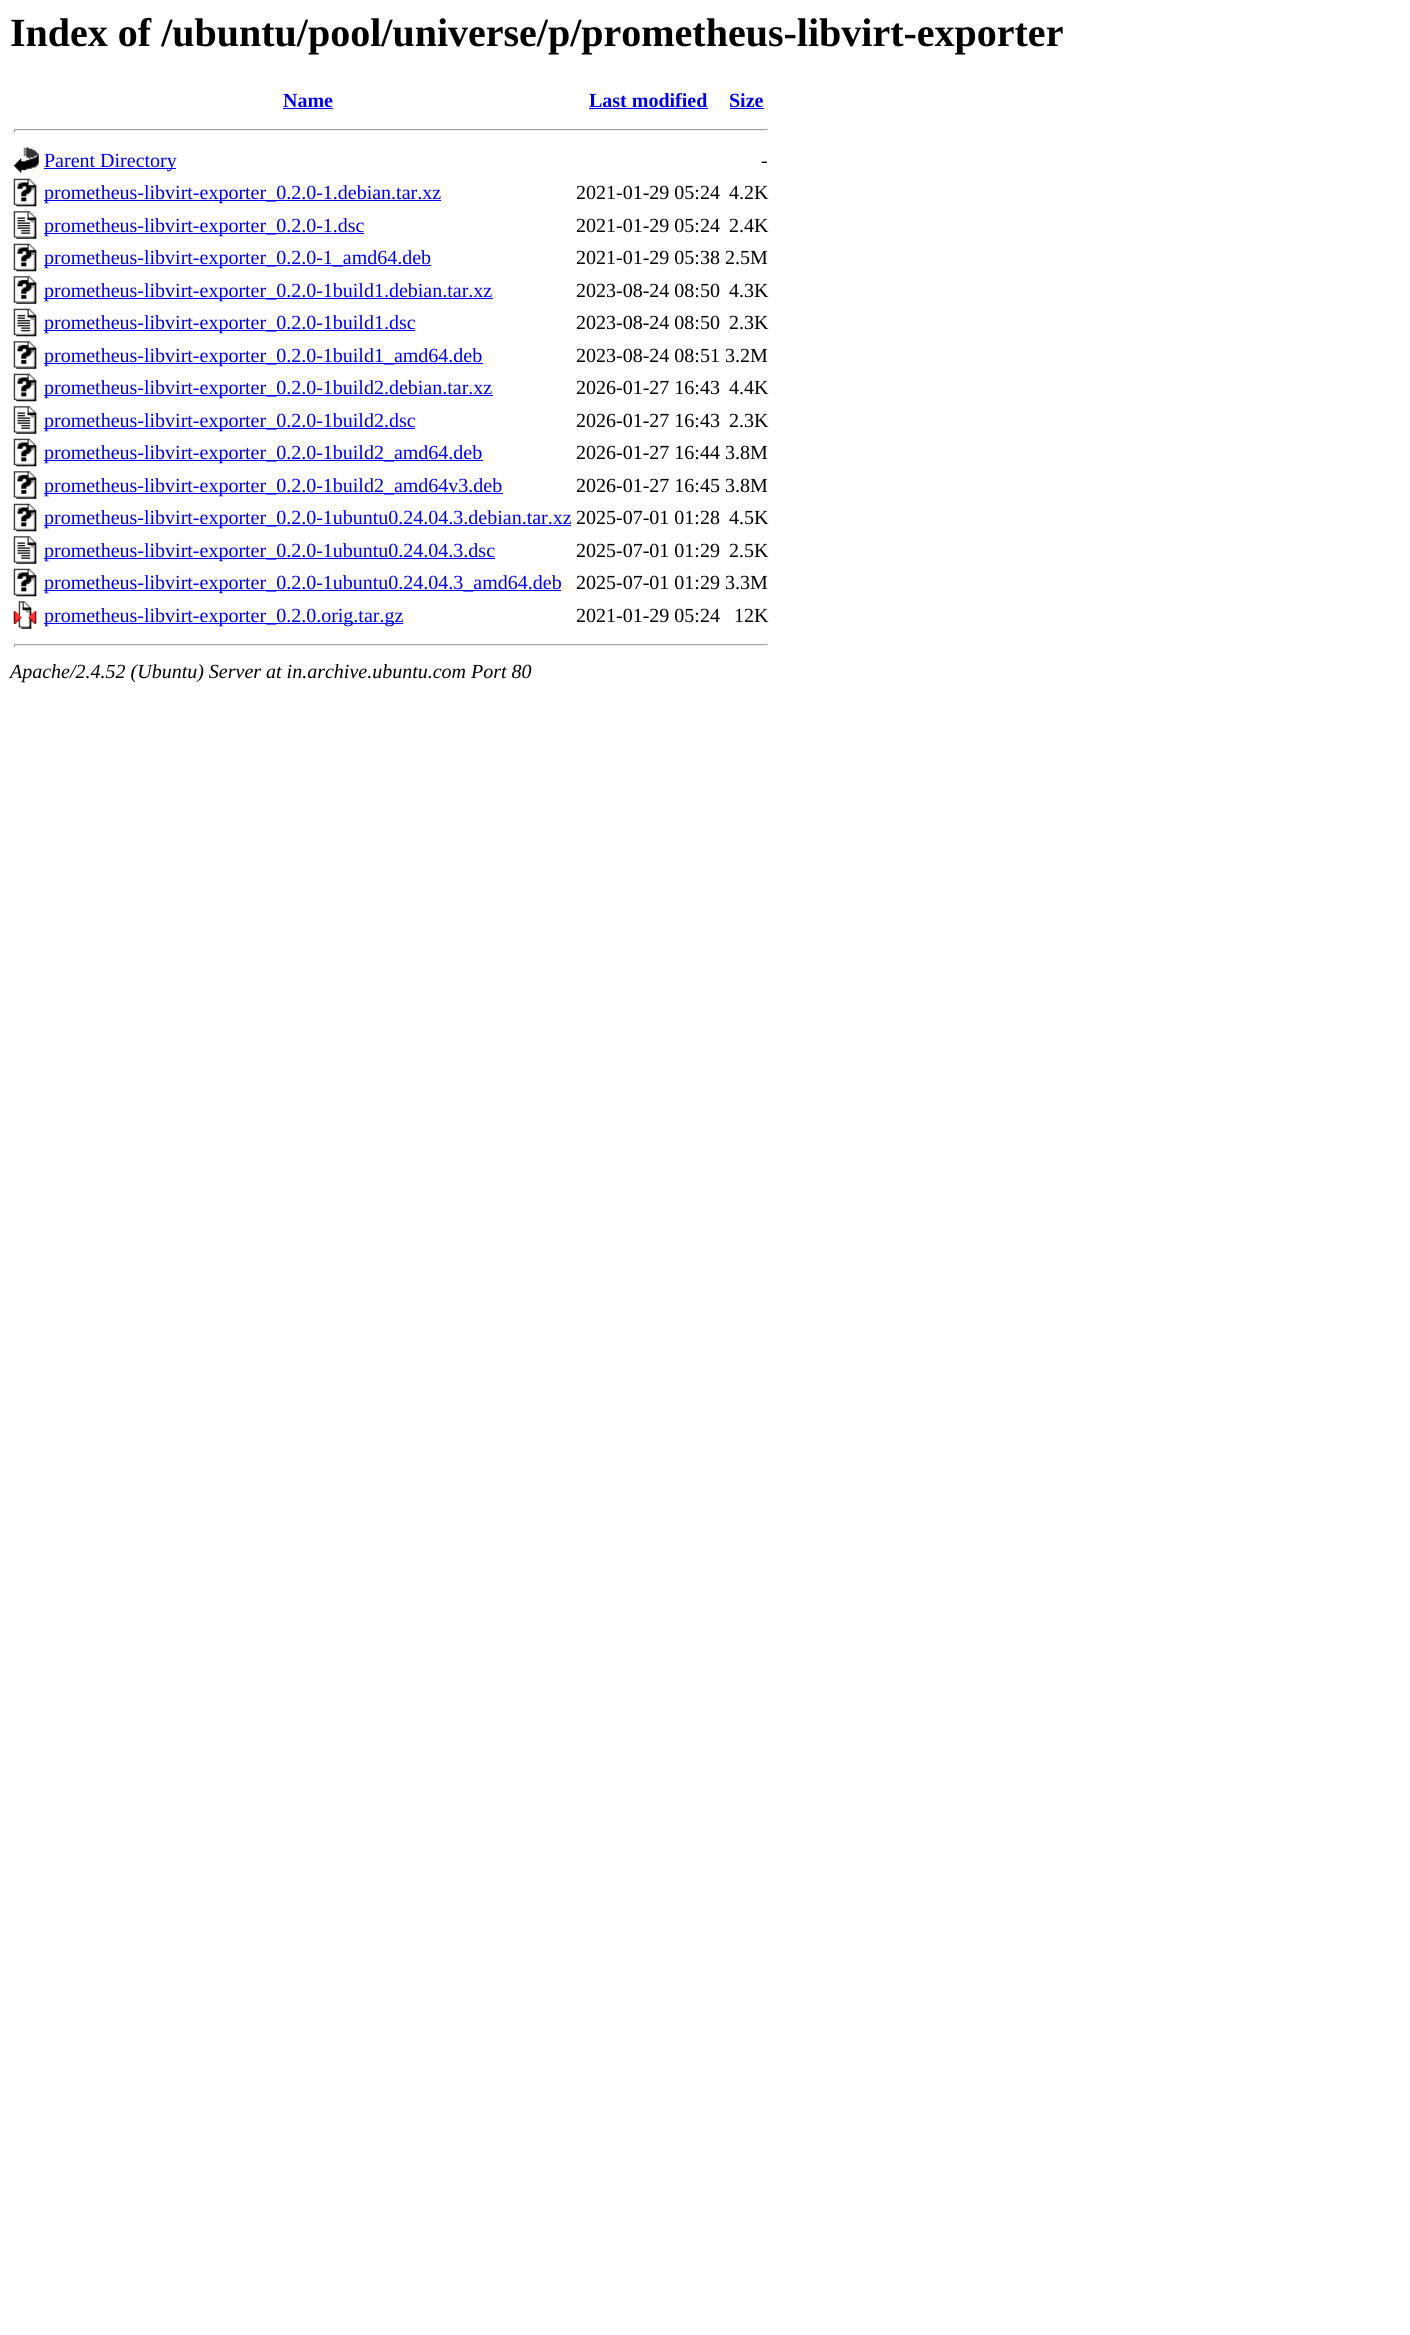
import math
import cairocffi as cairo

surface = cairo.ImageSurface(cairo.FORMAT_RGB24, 1410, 2335)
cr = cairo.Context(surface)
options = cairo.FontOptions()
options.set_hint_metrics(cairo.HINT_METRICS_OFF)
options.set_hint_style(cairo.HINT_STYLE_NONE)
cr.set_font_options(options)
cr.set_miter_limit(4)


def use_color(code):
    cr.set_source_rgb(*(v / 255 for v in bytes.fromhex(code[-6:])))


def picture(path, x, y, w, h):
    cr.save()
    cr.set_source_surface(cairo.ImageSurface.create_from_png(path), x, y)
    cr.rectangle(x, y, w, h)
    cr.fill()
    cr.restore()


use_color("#ffffff")
cr.paint()
cr.select_font_face("Liberation Serif", cairo.FONT_SLANT_NORMAL, cairo.FONT_WEIGHT_BOLD)
cr.set_font_size(40)
use_color("#000000")
cr.move_to(10, 46)
cr.show_text("Index of /ubuntu/pool/universe/p/prometheus-libvirt-exporter")
cr.set_font_size(20)
use_color("#0000ee")
cr.move_to(283, 107)
cr.show_text("Name")
cr.rectangle(283, 108, 50, 1)
cr.fill()
cr.move_to(589, 107)
cr.show_text("Last modified")
cr.rectangle(589, 108, 119, 1)
cr.fill()
cr.move_to(729, 107)
cr.show_text("Size")
cr.rectangle(730, 108, 34, 1)
cr.fill()
use_color("#9f9f9f")
cr.rectangle(14, 129, 754, 1)
cr.fill()
use_color("#eeeeee")
cr.rectangle(766, 129, 1, 3)
cr.fill()
cr.rectangle(14, 130, 754, 1)
cr.fill()
use_color("#9f9f9f")
cr.rectangle(14, 129, 1, 3)
cr.fill()
picture("img1.png", 13, 147, 26, 26)
use_color("#0000ee")
cr.rectangle(44, 168, 132, 1)
cr.fill()
cr.select_font_face("Liberation Serif")
cr.move_to(44, 167)
cr.show_text("Parent Directory")
use_color("#000000")
cr.move_to(761, 167)
cr.show_text("-")
picture("img2.png", 13, 178, 24, 29)
use_color("#0000ee")
cr.rectangle(44, 200, 397, 1)
cr.fill()
cr.move_to(44, 199)
cr.show_text("prometheus-libvirt-exporter_0.2.0-1.debian.tar.xz")
use_color("#000000")
cr.move_to(576, 199)
cr.show_text("2021-01-29 05:24")
cr.move_to(729, 199)
cr.show_text("4.2K")
picture("img3.png", 13, 211, 24, 28)
use_color("#0000ee")
cr.rectangle(44, 233, 320, 1)
cr.fill()
cr.move_to(44, 232)
cr.show_text("prometheus-libvirt-exporter_0.2.0-1.dsc")
use_color("#000000")
cr.move_to(576, 232)
cr.show_text("2021-01-29 05:24")
cr.move_to(729, 232)
cr.show_text("2.4K")
picture("img2.png", 13, 243, 24, 29)
use_color("#0000ee")
cr.rectangle(44, 265, 387, 1)
cr.fill()
cr.move_to(44, 264)
cr.show_text("prometheus-libvirt-exporter_0.2.0-1_amd64.deb")
use_color("#000000")
cr.move_to(576, 264)
cr.show_text("2021-01-29 05:38 2.5M")
picture("img4.png", 13, 276, 24, 28)
use_color("#0000ee")
cr.rectangle(44, 298, 449, 1)
cr.fill()
cr.move_to(44, 297)
cr.show_text("prometheus-libvirt-exporter_0.2.0-1build1.debian.tar.xz")
use_color("#000000")
cr.move_to(576, 297)
cr.show_text("2023-08-24 08:50")
cr.move_to(729, 297)
cr.show_text("4.3K")
picture("img5.png", 13, 308, 24, 29)
use_color("#0000ee")
cr.rectangle(44, 330, 371, 1)
cr.fill()
cr.move_to(44, 329)
cr.show_text("prometheus-libvirt-exporter_0.2.0-1build1.dsc")
use_color("#000000")
cr.move_to(576, 329)
cr.show_text("2023-08-24 08:50")
cr.move_to(729, 329)
cr.show_text("2.3K")
picture("img6.png", 13, 341, 24, 28)
use_color("#0000ee")
cr.rectangle(44, 363, 439, 1)
cr.fill()
cr.move_to(44, 362)
cr.show_text("prometheus-libvirt-exporter_0.2.0-1build1_amd64.deb")
use_color("#000000")
cr.move_to(576, 362)
cr.show_text("2023-08-24 08:51 3.2M")
picture("img2.png", 13, 373, 24, 29)
use_color("#0000ee")
cr.rectangle(44, 395, 449, 1)
cr.fill()
cr.move_to(44, 394)
cr.show_text("prometheus-libvirt-exporter_0.2.0-1build2.debian.tar.xz")
use_color("#000000")
cr.move_to(576, 394)
cr.show_text("2026-01-27 16:43")
cr.move_to(729, 394)
cr.show_text("4.4K")
picture("img3.png", 13, 406, 24, 28)
use_color("#0000ee")
cr.rectangle(44, 428, 371, 1)
cr.fill()
cr.move_to(44, 427)
cr.show_text("prometheus-libvirt-exporter_0.2.0-1build2.dsc")
use_color("#000000")
cr.move_to(576, 427)
cr.show_text("2026-01-27 16:43")
cr.move_to(729, 427)
cr.show_text("2.3K")
picture("img2.png", 13, 438, 24, 29)
use_color("#0000ee")
cr.rectangle(44, 460, 439, 1)
cr.fill()
cr.move_to(44, 459)
cr.show_text("prometheus-libvirt-exporter_0.2.0-1build2_amd64.deb")
use_color("#000000")
cr.move_to(576, 459)
cr.show_text("2026-01-27 16:44 3.8M")
picture("img6.png", 13, 471, 24, 28)
use_color("#0000ee")
cr.rectangle(44, 493, 459, 1)
cr.fill()
cr.move_to(44, 492)
cr.show_text("prometheus-libvirt-exporter_0.2.0-1build2_amd64v3.deb")
use_color("#000000")
cr.move_to(576, 492)
cr.show_text("2026-01-27 16:45 3.8M")
picture("img2.png", 13, 503, 24, 29)
use_color("#0000ee")
cr.rectangle(44, 525, 527, 1)
cr.fill()
cr.move_to(44, 524)
cr.show_text("prometheus-libvirt-exporter_0.2.0-1ubuntu0.24.04.3.debian.tar.xz")
use_color("#000000")
cr.move_to(576, 524)
cr.show_text("2025-07-01 01:28")
cr.move_to(729, 524)
cr.show_text("4.5K")
picture("img3.png", 13, 536, 24, 28)
use_color("#0000ee")
cr.rectangle(44, 558, 451, 1)
cr.fill()
cr.move_to(44, 557)
cr.show_text("prometheus-libvirt-exporter_0.2.0-1ubuntu0.24.04.3.dsc")
use_color("#000000")
cr.move_to(576, 557)
cr.show_text("2025-07-01 01:29")
cr.move_to(729, 557)
cr.show_text("2.5K")
picture("img2.png", 13, 568, 24, 29)
use_color("#0000ee")
cr.rectangle(44, 590, 517, 1)
cr.fill()
cr.move_to(44, 589)
cr.show_text("prometheus-libvirt-exporter_0.2.0-1ubuntu0.24.04.3_amd64.deb")
use_color("#000000")
cr.move_to(576, 589)
cr.show_text("2025-07-01 01:29 3.3M")
picture("img7.png", 13, 601, 24, 28)
use_color("#0000ee")
cr.rectangle(44, 623, 359, 1)
cr.fill()
cr.move_to(44, 622)
cr.show_text("prometheus-libvirt-exporter_0.2.0.orig.tar.gz")
use_color("#000000")
cr.move_to(576, 622)
cr.show_text("2021-01-29 05:24")
cr.move_to(734, 622)
cr.show_text("12K")
use_color("#9f9f9f")
cr.rectangle(14, 644, 754, 1)
cr.fill()
use_color("#eeeeee")
cr.rectangle(766, 644, 1, 3)
cr.fill()
cr.rectangle(14, 645, 754, 1)
cr.fill()
use_color("#9f9f9f")
cr.rectangle(14, 644, 1, 3)
cr.fill()
cr.select_font_face("Liberation Serif", cairo.FONT_SLANT_ITALIC)
use_color("#000000")
cr.move_to(10, 678)
cr.show_text("Apache/2.4.52 (Ubuntu) Server at in.archive.ubuntu.com Port 80")
surface.write_to_png("result.png")
